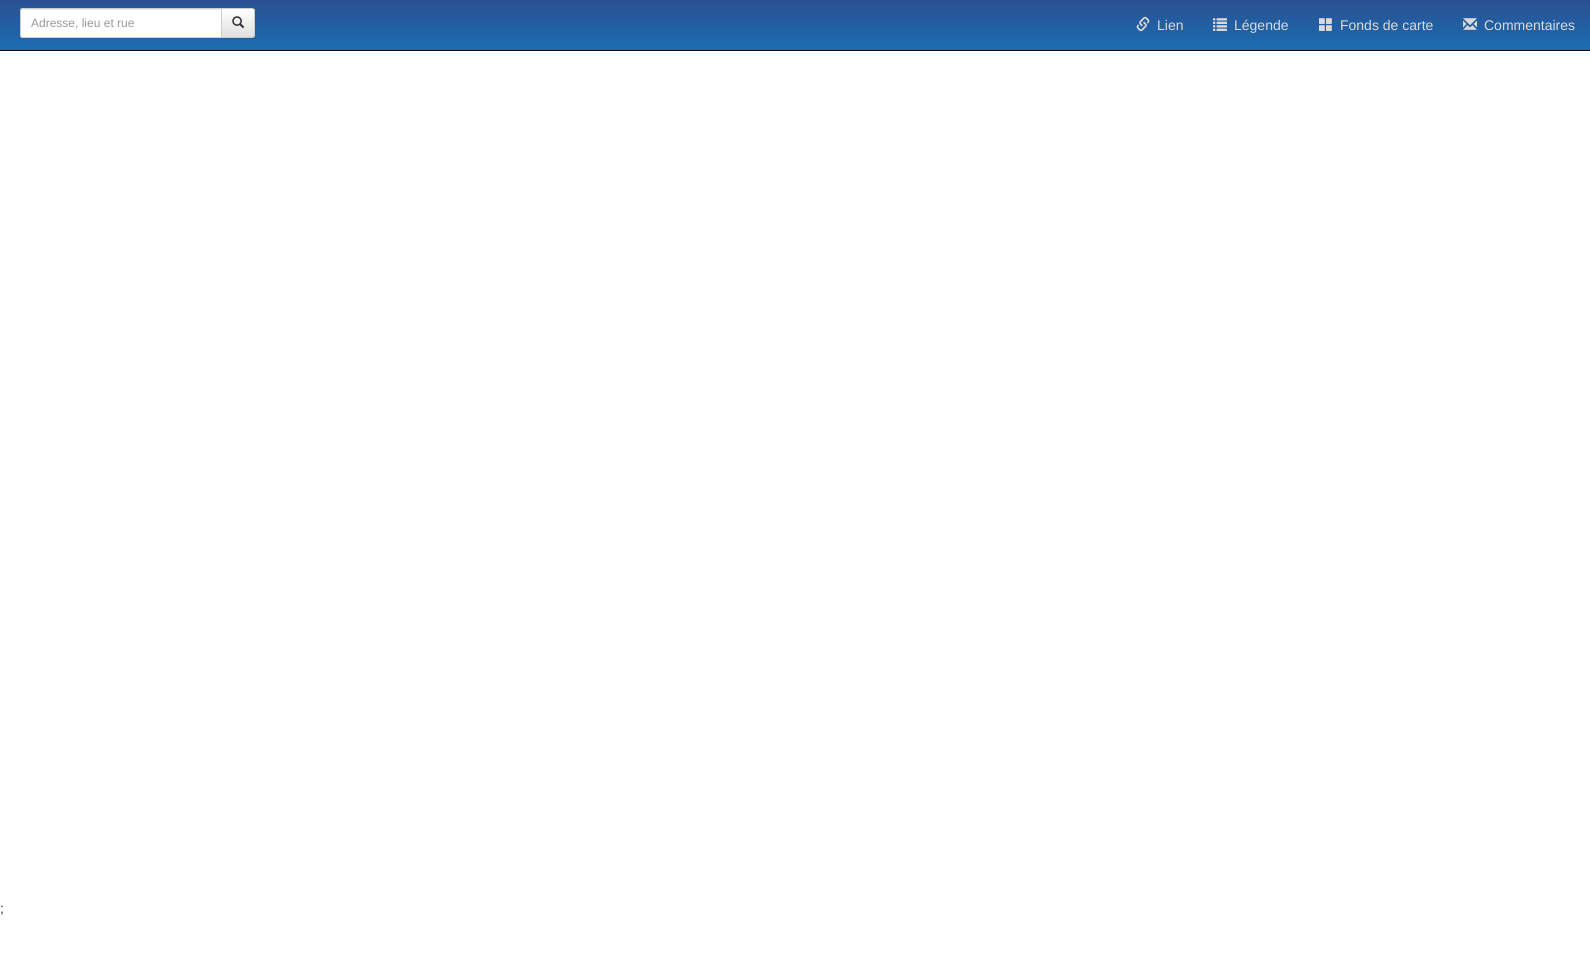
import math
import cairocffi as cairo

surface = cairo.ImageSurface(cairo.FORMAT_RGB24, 1590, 958)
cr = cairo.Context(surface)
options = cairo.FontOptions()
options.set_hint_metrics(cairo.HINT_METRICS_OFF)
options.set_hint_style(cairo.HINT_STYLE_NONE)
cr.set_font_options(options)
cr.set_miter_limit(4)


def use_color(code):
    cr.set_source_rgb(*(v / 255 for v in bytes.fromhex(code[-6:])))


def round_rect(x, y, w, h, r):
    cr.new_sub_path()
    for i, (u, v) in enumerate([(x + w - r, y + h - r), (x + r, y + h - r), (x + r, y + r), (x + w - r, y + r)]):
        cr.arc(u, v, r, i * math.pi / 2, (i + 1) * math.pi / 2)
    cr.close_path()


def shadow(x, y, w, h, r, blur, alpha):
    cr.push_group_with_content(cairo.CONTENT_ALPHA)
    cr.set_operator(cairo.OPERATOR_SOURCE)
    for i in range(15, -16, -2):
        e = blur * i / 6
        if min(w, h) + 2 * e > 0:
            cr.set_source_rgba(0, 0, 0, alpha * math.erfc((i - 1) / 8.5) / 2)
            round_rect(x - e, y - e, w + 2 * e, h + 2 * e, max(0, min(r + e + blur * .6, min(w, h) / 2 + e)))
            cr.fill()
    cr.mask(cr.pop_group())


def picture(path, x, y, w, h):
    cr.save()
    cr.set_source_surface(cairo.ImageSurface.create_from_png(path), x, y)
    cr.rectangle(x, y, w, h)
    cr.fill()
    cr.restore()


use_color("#ffffff")
cr.paint()
gradient = cairo.LinearGradient(795, 0, 795, 50)
gradient.add_color_stop_rgba(0, 0.169, 0.314, 0.576, 1)
gradient.add_color_stop_rgba(1, 0.102, 0.431, 0.69, 1)
cr.set_source(gradient)
cr.rectangle(0, 0, 1590, 50)
cr.fill()
use_color("#080808")
cr.rectangle(0, 50, 1590, 1)
cr.fill()
use_color("#000000")
shadow(221, 9, 34, 30, 3, 0.5, 0.07)
cr.save()
cr.new_path()
cr.move_to(221, 8)
cr.line_to(252, 8)
cr.curve_to(253.5, 8, 255, 9.5, 255, 11)
cr.line_to(255, 35)
cr.curve_to(255, 36.5, 253.5, 38, 252, 38)
cr.line_to(221, 38)
cr.close_path()
cr.clip()
gradient = cairo.LinearGradient(238, 9, 238, 37)
gradient.add_color_stop_rgba(0, 1, 1, 1, 1)
gradient.add_color_stop_rgba(1, 0.878, 0.878, 0.878, 1)
cr.set_source(gradient)
cr.rectangle(222, 9, 33, 28)
cr.fill()
cr.restore()
cr.new_path()
cr.move_to(221.5, 8.5)
cr.line_to(252, 8.5)
cr.curve_to(253.5, 8.5, 254.5, 9.5, 254.5, 11)
cr.line_to(254.5, 35)
cr.curve_to(254.5, 36.5, 253.5, 37.5, 252, 37.5)
cr.line_to(221.5, 37.5)
cr.close_path()
use_color("#cccccc")
cr.set_line_width(1)
cr.stroke()
use_color("#ffffff")
cr.new_path()
cr.move_to(23, 8)
cr.line_to(222, 8)
cr.line_to(222, 38)
cr.line_to(23, 38)
cr.curve_to(21.5, 38, 20, 36.5, 20, 35)
cr.line_to(20, 11)
cr.curve_to(20, 9.5, 21.5, 8, 23, 8)
cr.close_path()
cr.fill()
use_color("#ececec")
cr.new_path()
cr.move_to(23, 10)
cr.line_to(221, 10)
cr.line_to(221, 9)
cr.line_to(23, 9)
cr.curve_to(21, 9, 21, 11, 21, 12)
cr.curve_to(21, 11, 22, 10, 23, 10)
cr.close_path()
cr.fill()
cr.new_path()
cr.move_to(23, 8.5)
cr.line_to(221.5, 8.5)
cr.line_to(221.5, 37.5)
cr.line_to(23, 37.5)
cr.curve_to(21.5, 37.5, 20.5, 36.5, 20.5, 35)
cr.line_to(20.5, 11)
cr.curve_to(20.5, 9.5, 21.5, 8.5, 23, 8.5)
cr.close_path()
use_color("#cccccc")
cr.stroke()
cr.select_font_face("Liberation Sans")
cr.set_font_size(12)
use_color("#999999")
cr.move_to(31, 27)
cr.show_text("Adresse, lieu et rue")
picture("img1.png", 232, 16, 13, 13)
picture("img2.png", 1136, 16, 14, 16)
cr.set_font_size(14)
use_color("#ddd9d9")
cr.move_to(1157, 30)
cr.show_text("Lien")
picture("img3.png", 1213, 18, 14, 13)
cr.move_to(1234, 30)
cr.show_text("Légende")
picture("img4.png", 1319, 18, 13, 13)
cr.move_to(1340, 30)
cr.show_text("Fonds de carte")
picture("img5.png", 1463, 18, 14, 12)
cr.move_to(1484, 30)
cr.show_text("Commentaires")
use_color("#333333")
cr.move_to(0, 913)
cr.show_text(";")
surface.write_to_png("result.png")
